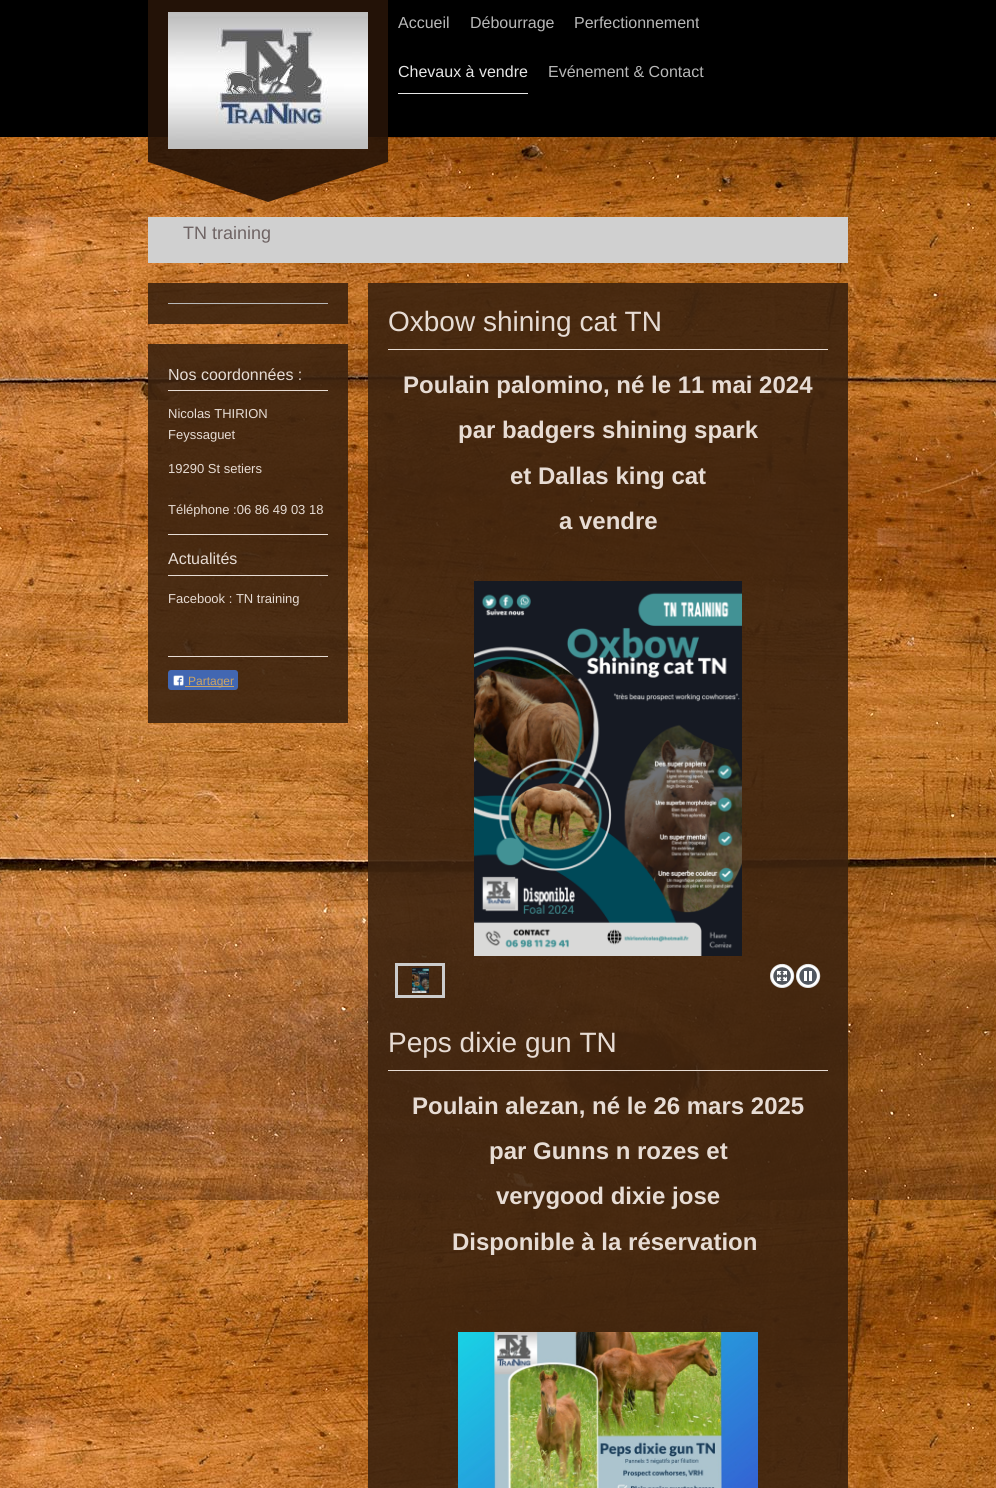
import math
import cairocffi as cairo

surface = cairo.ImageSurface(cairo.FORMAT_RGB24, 996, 1488)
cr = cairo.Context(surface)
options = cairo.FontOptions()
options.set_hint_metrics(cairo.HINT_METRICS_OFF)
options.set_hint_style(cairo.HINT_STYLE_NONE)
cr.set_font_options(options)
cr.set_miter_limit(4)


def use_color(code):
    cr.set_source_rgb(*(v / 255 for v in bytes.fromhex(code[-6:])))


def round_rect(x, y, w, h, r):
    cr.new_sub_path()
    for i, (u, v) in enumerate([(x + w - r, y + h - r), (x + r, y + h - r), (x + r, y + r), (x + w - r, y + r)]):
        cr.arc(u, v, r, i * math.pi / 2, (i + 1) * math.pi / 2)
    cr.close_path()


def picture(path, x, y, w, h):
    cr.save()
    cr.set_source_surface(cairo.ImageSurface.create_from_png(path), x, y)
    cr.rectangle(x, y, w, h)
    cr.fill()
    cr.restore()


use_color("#ffffff")
cr.paint()
picture("img1.png", 0, 137, 996, 1351)
use_color("#000000")
cr.rectangle(0, 0, 996, 137)
cr.fill()
cr.set_source_rgba(0.153, 0.082, 0.031, 0.9)
cr.rectangle(148, 0, 240, 162)
cr.fill()
picture("img2.png", 168, 12, 200, 137)
cr.new_path()
cr.move_to(148, 162)
cr.line_to(388, 162)
cr.line_to(268, 202)
cr.close_path()
cr.fill()
cr.select_font_face("Liberation Sans")
cr.set_font_size(16)
use_color("#b8b8b8")
cr.move_to(398, 28)
cr.show_text("Accueil")
cr.move_to(470, 28)
cr.show_text("Débourrage")
cr.save()
cr.rectangle(574, 0, 125, 46)
cr.clip()
cr.move_to(574, 28)
cr.show_text("Perfectionnement")
cr.restore()
use_color("#e6e6e6")
cr.rectangle(398, 93, 130, 1)
cr.fill()
cr.move_to(398, 77)
cr.show_text("Chevaux à vendre")
use_color("#b8b8b8")
cr.move_to(548, 77)
cr.show_text("Evénement & Contact")
use_color("#d0d0d0")
cr.rectangle(148, 217, 700, 46)
cr.fill()
cr.set_font_size(18)
use_color("#6f6464")
cr.move_to(183, 239)
cr.show_text("TN training")
cr.set_source_rgba(0.235, 0.137, 0.059, 0.9)
cr.rectangle(148, 283, 200, 41)
cr.fill()
use_color("#b8b8b8")
cr.rectangle(168, 303, 160, 1)
cr.fill()
cr.set_source_rgba(0.235, 0.137, 0.059, 0.9)
cr.rectangle(148, 344, 200, 379)
cr.fill()
use_color("#e7dcd4")
cr.rectangle(168, 390, 160, 1)
cr.fill()
cr.set_font_size(16)
cr.move_to(168, 380)
cr.show_text("Nos coordonnées :")
cr.set_font_size(13)
cr.move_to(168, 418)
cr.show_text("Nicolas THIRION")
cr.move_to(168, 439)
cr.show_text("Feyssaguet")
cr.move_to(168, 473)
cr.show_text("19290 St setiers")
cr.move_to(168, 514)
cr.show_text("Téléphone :06 86 49 03 18")
cr.rectangle(168, 534, 160, 1)
cr.fill()
cr.rectangle(168, 575, 160, 1)
cr.fill()
cr.set_font_size(16)
cr.move_to(168, 564)
cr.show_text("Actualités")
cr.set_font_size(13)
cr.move_to(168, 603)
cr.show_text("Facebook : TN training")
cr.rectangle(168, 656, 160, 1)
cr.fill()
use_color("#4267b2")
round_rect(168, 670, 70, 20, 3)
cr.fill()
picture("img3.png", 173, 675, 11, 11)
use_color("#cba465")
cr.rectangle(185, 686, 49, 1)
cr.fill()
cr.set_font_size(12)
cr.move_to(188, 685)
cr.show_text("Partager")
cr.set_source_rgba(0.235, 0.137, 0.059, 0.9)
cr.rectangle(368, 283, 480, 1205)
cr.fill()
use_color("#e7dcd4")
cr.rectangle(388, 349, 440, 1)
cr.fill()
cr.set_font_size(28)
cr.move_to(388, 331)
cr.show_text("Oxbow shining cat TN")
cr.select_font_face("Liberation Sans", cairo.FONT_SLANT_NORMAL, cairo.FONT_WEIGHT_BOLD)
cr.set_font_size(24)
cr.move_to(403, 393)
cr.show_text("Poulain palomino, né le 11 mai 2024")
cr.move_to(458, 438)
cr.show_text("par badgers shining spark")
cr.move_to(510, 484)
cr.show_text("et Dallas king cat")
cr.move_to(559, 529)
cr.show_text("a vendre")
picture("img4.png", 474, 581, 268, 375)
cr.rectangle(396.5, 964.5, 47, 32)
use_color("#cccccc")
cr.set_line_width(3)
cr.stroke()
picture("img5.png", 412, 968, 17, 25)
picture("img6.png", 770, 963, 25, 25)
picture("img7.png", 796, 963, 25, 25)
use_color("#e7dcd4")
cr.rectangle(388, 1070, 440, 1)
cr.fill()
cr.select_font_face("Liberation Sans")
cr.set_font_size(28)
cr.move_to(388, 1052)
cr.show_text("Peps dixie gun TN")
cr.select_font_face("Liberation Sans", cairo.FONT_SLANT_NORMAL, cairo.FONT_WEIGHT_BOLD)
cr.set_font_size(24)
cr.move_to(412, 1114)
cr.show_text("Poulain alezan, né le 26 mars 2025")
cr.move_to(489, 1159)
cr.show_text("par Gunns n rozes et")
cr.move_to(496, 1204)
cr.show_text("verygood dixie jose")
cr.move_to(452, 1250)
cr.show_text("Disponible à la réservation")
picture("img8.png", 458, 1332, 300, 156)
surface.write_to_png("result.png")
